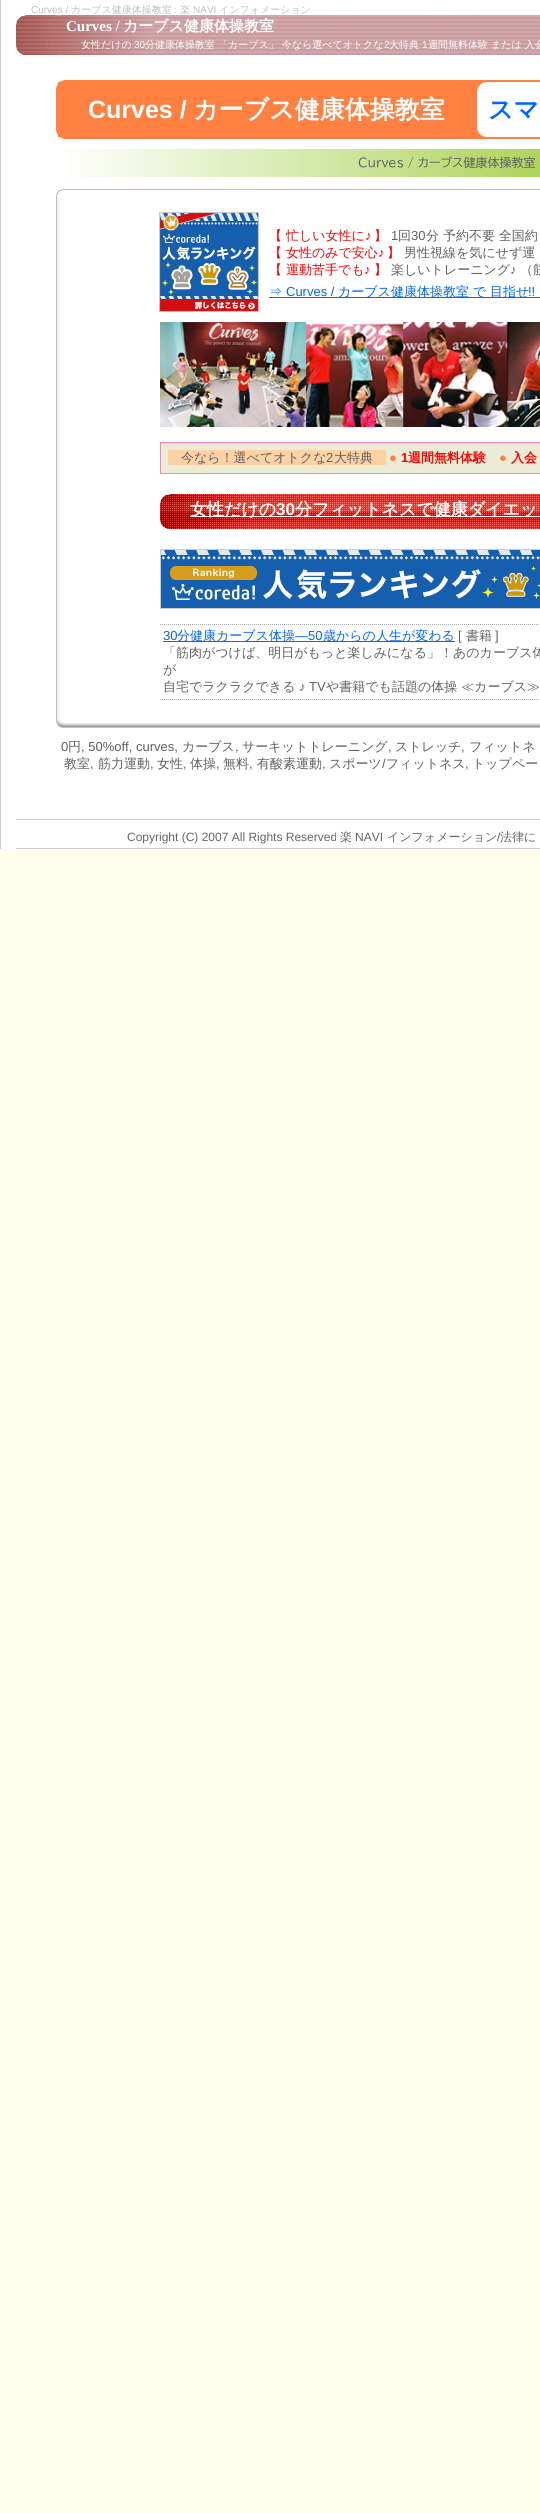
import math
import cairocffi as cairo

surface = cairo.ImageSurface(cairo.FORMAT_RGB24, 540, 2513)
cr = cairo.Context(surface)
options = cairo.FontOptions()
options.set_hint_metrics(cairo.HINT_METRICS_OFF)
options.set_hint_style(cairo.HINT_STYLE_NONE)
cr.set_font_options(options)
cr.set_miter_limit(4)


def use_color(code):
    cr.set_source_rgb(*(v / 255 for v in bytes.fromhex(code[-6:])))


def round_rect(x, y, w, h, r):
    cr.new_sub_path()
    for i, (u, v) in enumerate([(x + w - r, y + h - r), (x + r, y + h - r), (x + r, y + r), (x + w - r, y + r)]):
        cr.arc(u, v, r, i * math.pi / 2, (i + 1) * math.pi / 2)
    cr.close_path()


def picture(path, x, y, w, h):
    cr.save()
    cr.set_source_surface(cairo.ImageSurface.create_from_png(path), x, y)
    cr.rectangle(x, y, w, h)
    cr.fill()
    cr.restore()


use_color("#ffffeb")
cr.paint()
use_color("#ffffff")
cr.rectangle(1, 0, 539, 849)
cr.fill()
use_color("#cccccc")
cr.rectangle(0, 0, 1, 849)
cr.fill()
picture("img1.png", 16, 15, 524, 40)
cr.select_font_face("Liberation Sans")
cr.set_font_size(10)
use_color("#c0c0c0")
cr.move_to(31, 13)
cr.show_text("Curves /")
cr.select_font_face("WenQuanYi Zen Hei Medium")
cr.move_to(71, 13)
cr.show_text("カーブス健康体操教室")
cr.select_font_face("Liberation Sans")
cr.move_to(174, 13)
cr.show_text(":")
cr.select_font_face("WenQuanYi Zen Hei Medium")
cr.move_to(180, 13)
cr.show_text("楽")
cr.select_font_face("Liberation Sans")
cr.move_to(193, 13)
cr.show_text("NAVI")
cr.select_font_face("WenQuanYi Zen Hei Medium")
cr.move_to(219, 13)
cr.show_text("インフォメーション")
cr.select_font_face("Liberation Serif", cairo.FONT_SLANT_NORMAL, cairo.FONT_WEIGHT_BOLD)
cr.set_font_size(15)
use_color("#ffffff")
cr.move_to(66, 31)
cr.show_text("Curves /")
cr.select_font_face("WenQuanYi Zen Hei", cairo.FONT_SLANT_NORMAL, cairo.FONT_WEIGHT_BOLD)
cr.move_to(123, 31)
cr.show_text("カーブス健康体操教室")
cr.select_font_face("WenQuanYi Zen Hei Medium")
cr.set_font_size(10)
cr.move_to(81, 48)
cr.show_text("女性だけの")
cr.select_font_face("Liberation Sans")
cr.move_to(134, 48)
cr.show_text("30")
cr.select_font_face("WenQuanYi Zen Hei Medium")
cr.move_to(145, 48)
cr.show_text("分健康体操教室 「カーブス」 今なら選べてオトクな")
cr.select_font_face("Liberation Sans")
cr.move_to(384, 48)
cr.show_text("2")
cr.select_font_face("WenQuanYi Zen Hei Medium")
cr.move_to(389, 48)
cr.show_text("大特典")
cr.select_font_face("Liberation Sans")
cr.move_to(422, 48)
cr.show_text("1")
cr.select_font_face("WenQuanYi Zen Hei Medium")
cr.move_to(428, 48)
cr.show_text("週間無料体験 または 入会")
use_color("#ff8040")
round_rect(56, 80, 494, 59, 10)
cr.fill()
cr.rectangle(58, 82, 2, 55)
cr.fill()
cr.select_font_face("Liberation Sans", cairo.FONT_SLANT_NORMAL, cairo.FONT_WEIGHT_BOLD)
cr.set_font_size(25)
use_color("#ffffff")
cr.move_to(88, 118)
cr.show_text("Curves /")
cr.select_font_face("WenQuanYi Zen Hei", cairo.FONT_SLANT_NORMAL, cairo.FONT_WEIGHT_BOLD)
cr.move_to(193, 118)
cr.show_text("カーブス健康体操教室")
round_rect(477, 82, 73, 55, 10)
cr.fill()
use_color("#0066ff")
cr.move_to(488, 118)
cr.show_text("スマ")
gradient = cairo.LinearGradient(58, 163, 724, 163)
gradient.add_color_stop_rgba(0, 1, 1, 1, 1)
gradient.add_color_stop_rgba(1, 0.565, 0.765, 0.122, 1)
cr.set_source(gradient)
cr.rectangle(65, 149, 475, 28)
cr.fill()
cr.select_font_face("BIZ UDPGothic")
cr.set_font_size(12)
use_color("#606060")
cr.move_to(358, 167)
cr.show_text("Curves / カーブス健康体操教室")
picture("img2.png", 56, 189, 8, 8)
use_color("#bfbfbf")
cr.rectangle(64, 189, 476, 1)
cr.fill()
picture("img3.png", 56, 197, 4, 523)
picture("img4.png", 159, 212, 100, 100)
cr.select_font_face("WenQuanYi Zen Hei Medium")
cr.set_font_size(13)
use_color("#ff0000")
cr.move_to(269, 240)
cr.show_text("【 忙しい女性に")
cr.select_font_face("Liberation Sans")
cr.move_to(365, 240)
cr.show_text("♪")
cr.select_font_face("WenQuanYi Zen Hei Medium")
cr.move_to(374, 240)
cr.show_text("】")
cr.select_font_face("Liberation Sans")
use_color("#606060")
cr.move_to(391, 240)
cr.show_text("1")
cr.select_font_face("WenQuanYi Zen Hei Medium")
cr.move_to(398, 240)
cr.show_text("回")
cr.select_font_face("Liberation Sans")
cr.move_to(411, 240)
cr.show_text("30")
cr.select_font_face("WenQuanYi Zen Hei Medium")
cr.move_to(426, 240)
cr.show_text("分 予約不要 全国約")
use_color("#ff0000")
cr.move_to(269, 257)
cr.show_text("【 女性のみで安心")
cr.select_font_face("Liberation Sans")
cr.move_to(378, 257)
cr.show_text("♪")
cr.select_font_face("WenQuanYi Zen Hei Medium")
cr.move_to(387, 257)
cr.show_text("】")
use_color("#606060")
cr.move_to(404, 257)
cr.show_text("男性視線を気にせず運")
use_color("#ff0000")
cr.move_to(269, 274)
cr.show_text("【 運動苦手でも")
cr.select_font_face("Liberation Sans")
cr.move_to(364, 274)
cr.show_text("♪")
cr.select_font_face("WenQuanYi Zen Hei Medium")
cr.move_to(374, 274)
cr.show_text("】")
use_color("#606060")
cr.move_to(391, 274)
cr.show_text("楽しいトレーニング")
cr.select_font_face("Liberation Sans")
cr.move_to(510, 274)
cr.show_text("♪")
cr.select_font_face("WenQuanYi Zen Hei Medium")
cr.move_to(520, 274)
cr.show_text("（筋")
use_color("#0066ff")
cr.move_to(269, 296)
cr.show_text("⇒")
cr.select_font_face("Liberation Sans")
cr.move_to(286, 296)
cr.show_text("Curves /")
cr.rectangle(269, 297, 271, 1)
cr.fill()
cr.select_font_face("WenQuanYi Zen Hei Medium")
cr.move_to(338, 296)
cr.show_text("カーブス健康体操教室 で 目指せ")
cr.select_font_face("Liberation Sans")
cr.move_to(528, 296)
cr.show_text("!!")
picture("img5.png", 160, 322, 380, 105)
use_color("#ecebd6")
cr.rectangle(160.5, 442.5, 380, 31)
cr.fill_preserve()
use_color("#ff80c0")
cr.set_line_width(1)
cr.stroke()
use_color("#ffd2a6")
cr.rectangle(168, 450, 218, 15)
cr.fill()
cr.select_font_face("WenQuanYi Zen Hei Medium")
use_color("#606060")
cr.move_to(181, 462)
cr.show_text("今なら！選べてオトクな")
cr.select_font_face("Liberation Sans")
cr.move_to(326, 462)
cr.show_text("2")
cr.select_font_face("WenQuanYi Zen Hei Medium")
cr.move_to(334, 462)
cr.show_text("大特典")
cr.select_font_face("Liberation Sans", cairo.FONT_SLANT_NORMAL, cairo.FONT_WEIGHT_BOLD)
use_color("#ff8040")
cr.move_to(389, 462)
cr.show_text("●")
use_color("#ff0000")
cr.move_to(401, 462)
cr.show_text("1")
cr.select_font_face("WenQuanYi Zen Hei", cairo.FONT_SLANT_NORMAL, cairo.FONT_WEIGHT_BOLD)
cr.move_to(408, 462)
cr.show_text("週間無料体験")
cr.select_font_face("Liberation Sans", cairo.FONT_SLANT_NORMAL, cairo.FONT_WEIGHT_BOLD)
use_color("#ff8040")
cr.move_to(499, 462)
cr.show_text("●")
cr.select_font_face("WenQuanYi Zen Hei", cairo.FONT_SLANT_NORMAL, cairo.FONT_WEIGHT_BOLD)
use_color("#ff0000")
cr.move_to(511, 462)
cr.show_text("入会")
picture("img6.png", 160, 494, 380, 35)
use_color("#ffffff")
cr.rectangle(190, 516, 350, 1)
cr.fill()
cr.set_font_size(17)
cr.move_to(190, 515)
cr.show_text("女性だけの")
cr.select_font_face("Liberation Sans", cairo.FONT_SLANT_NORMAL, cairo.FONT_WEIGHT_BOLD)
cr.move_to(276, 515)
cr.show_text("30")
cr.select_font_face("WenQuanYi Zen Hei", cairo.FONT_SLANT_NORMAL, cairo.FONT_WEIGHT_BOLD)
cr.move_to(295, 515)
cr.show_text("分フィットネスで健康ダイエッ")
picture("img7.png", 160, 549, 380, 60)
cr.new_path()
cr.move_to(160, 624.5)
cr.line_to(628, 624.5)
use_color("#aaaaaa")
cr.set_dash([1, 1])
cr.stroke()
cr.new_path()
cr.move_to(160, 699.5)
cr.line_to(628, 699.5)
cr.stroke()
cr.select_font_face("Liberation Sans")
cr.set_font_size(13)
use_color("#0066ff")
cr.move_to(163, 640)
cr.show_text("30")
cr.rectangle(163, 641, 292, 1)
cr.fill()
cr.select_font_face("WenQuanYi Zen Hei Medium")
cr.move_to(177, 640)
cr.show_text("分健康カーブス体操")
cr.select_font_face("Liberation Sans")
cr.move_to(295, 640)
cr.show_text("―50")
cr.select_font_face("WenQuanYi Zen Hei Medium")
cr.move_to(323, 640)
cr.show_text("歳からの人生が変わる")
cr.select_font_face("Liberation Sans")
use_color("#606060")
cr.move_to(458, 640)
cr.show_text("[")
cr.select_font_face("WenQuanYi Zen Hei Medium")
cr.move_to(466, 640)
cr.show_text("書籍")
cr.select_font_face("Liberation Sans")
cr.move_to(495, 640)
cr.show_text("]")
cr.select_font_face("WenQuanYi Zen Hei Medium")
cr.move_to(163, 657)
cr.show_text("「筋肉がつけば、明日がもっと楽しみになる」！あのカーブス体")
cr.move_to(163, 674)
cr.show_text("が")
cr.move_to(163, 691)
cr.show_text("自宅でラクラクできる")
cr.select_font_face("Liberation Sans")
cr.move_to(299, 691)
cr.show_text("♪ TV")
cr.select_font_face("WenQuanYi Zen Hei Medium")
cr.move_to(326, 691)
cr.show_text("や書籍でも話題の体操 ≪カーブス≫")
picture("img8.png", 56, 720, 8, 8)
picture("img9.png", 64, 723, 476, 5)
cr.select_font_face("Liberation Sans")
cr.move_to(61, 751)
cr.show_text("0")
cr.select_font_face("WenQuanYi Zen Hei Medium")
cr.move_to(68, 751)
cr.show_text("円")
cr.select_font_face("Liberation Sans")
cr.move_to(81, 751)
cr.show_text(", 50%off, curves,")
cr.select_font_face("WenQuanYi Zen Hei Medium")
cr.move_to(182, 751)
cr.show_text("カーブス")
cr.select_font_face("Liberation Sans")
cr.move_to(235, 751)
cr.show_text(",")
cr.select_font_face("WenQuanYi Zen Hei Medium")
cr.move_to(242, 751)
cr.show_text("サーキットトレーニング")
cr.select_font_face("Liberation Sans")
cr.move_to(388, 751)
cr.show_text(",")
cr.select_font_face("WenQuanYi Zen Hei Medium")
cr.move_to(395, 751)
cr.show_text("ストレッチ")
cr.select_font_face("Liberation Sans")
cr.move_to(461, 751)
cr.show_text(",")
cr.select_font_face("WenQuanYi Zen Hei Medium")
cr.move_to(469, 751)
cr.show_text("フィットネ")
cr.move_to(64, 768)
cr.show_text("教室")
cr.move_to(98, 768)
cr.show_text("筋力運動")
cr.move_to(157, 768)
cr.show_text("女性")
cr.move_to(190, 768)
cr.show_text("体操")
cr.move_to(223, 768)
cr.show_text("無料")
cr.move_to(257, 768)
cr.show_text("有酸素運動")
cr.move_to(329, 768)
cr.show_text("スポーツ フィットネス")
cr.move_to(472, 768)
cr.show_text("トップペー")
cr.select_font_face("Liberation Sans")
cr.move_to(90, 768)
cr.show_text(",")
cr.move_to(150, 768)
cr.show_text(",")
cr.move_to(183, 768)
cr.show_text(",")
cr.move_to(216, 768)
cr.show_text(",")
cr.move_to(249, 768)
cr.show_text(",")
cr.move_to(322, 768)
cr.show_text(",")
cr.move_to(382, 768)
cr.show_text("/")
cr.move_to(465, 768)
cr.show_text(",")
use_color("#cccccc")
cr.rectangle(16, 819, 524, 1)
cr.fill()
cr.rectangle(16, 848, 524, 1)
cr.fill()
cr.set_font_size(12)
use_color("#666666")
cr.move_to(127, 841)
cr.show_text("Copyright (C) 2007 All Rights Reserved")
cr.select_font_face("WenQuanYi Zen Hei Medium")
cr.move_to(340, 841)
cr.show_text("楽")
cr.select_font_face("Liberation Sans")
cr.move_to(355, 841)
cr.show_text("NAVI")
cr.select_font_face("WenQuanYi Zen Hei Medium")
cr.move_to(387, 841)
cr.show_text("インフォメーション")
cr.select_font_face("Liberation Sans")
cr.move_to(497, 841)
cr.show_text("/")
cr.select_font_face("WenQuanYi Zen Hei Medium")
cr.move_to(500, 841)
cr.show_text("法律に")
surface.write_to_png("result.png")
